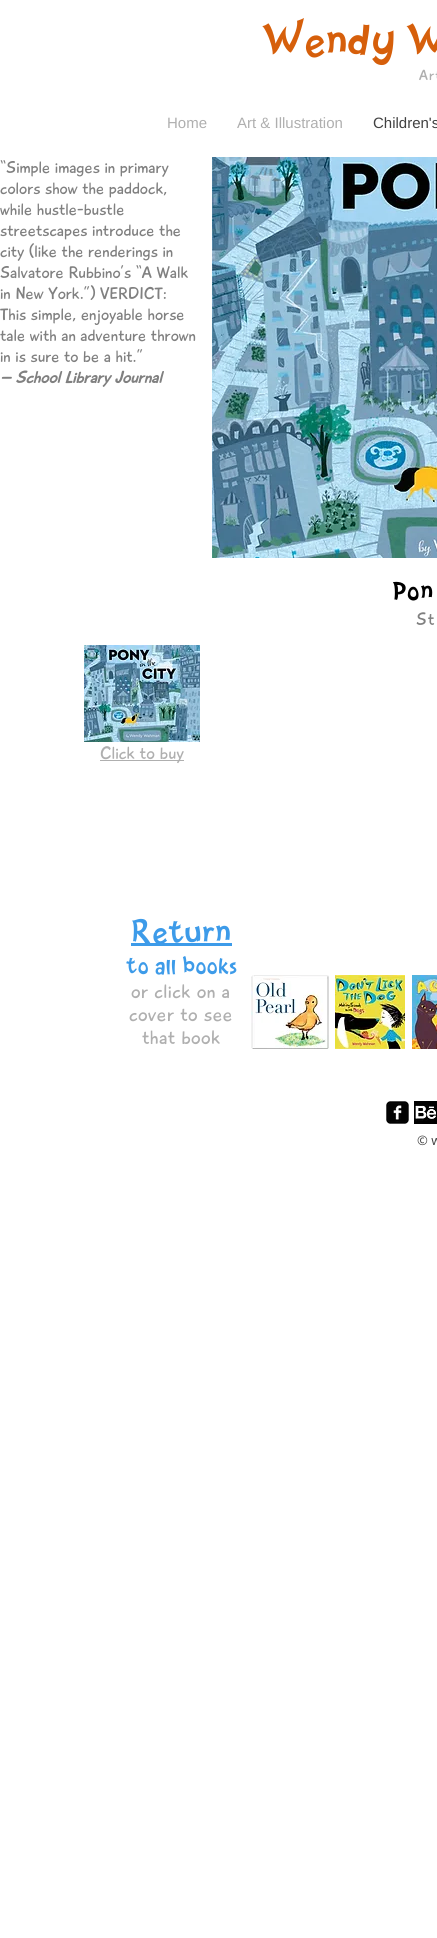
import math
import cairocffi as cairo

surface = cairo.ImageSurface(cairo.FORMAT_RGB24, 437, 1938)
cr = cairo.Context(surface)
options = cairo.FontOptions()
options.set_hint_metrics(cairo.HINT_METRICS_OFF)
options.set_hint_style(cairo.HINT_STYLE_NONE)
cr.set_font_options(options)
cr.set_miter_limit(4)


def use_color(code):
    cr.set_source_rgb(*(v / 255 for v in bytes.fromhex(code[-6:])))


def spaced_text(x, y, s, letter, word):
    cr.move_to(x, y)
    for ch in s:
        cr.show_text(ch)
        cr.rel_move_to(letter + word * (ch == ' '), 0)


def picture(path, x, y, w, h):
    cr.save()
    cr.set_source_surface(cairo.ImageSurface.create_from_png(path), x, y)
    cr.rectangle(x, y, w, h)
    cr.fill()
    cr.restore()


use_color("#ffffff")
cr.paint()
cr.select_font_face("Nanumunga")
cr.set_font_size(42)
use_color("#d65f0b")
cr.move_to(261, 53)
cr.show_text("Wendy W")
cr.select_font_face("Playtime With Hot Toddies")
cr.set_font_size(15)
use_color("#afafaf")
spaced_text(419, 80, "Art", 1, 0)
cr.select_font_face("Liberation Sans")
cr.move_to(167, 128)
cr.show_text("Home")
cr.move_to(237, 128)
cr.show_text("Art & Illustration")
use_color("#414141")
cr.move_to(373, 128)
cr.show_text("Children's")
cr.select_font_face("Playtime With Hot Toddies")
cr.set_font_size(17)
use_color("#808080")
cr.move_to(0, 173)
cr.show_text("“Simple images in primary")
cr.move_to(0, 194)
cr.show_text("colors show the paddock,")
cr.move_to(0, 215)
cr.show_text("while hustle-bustle")
cr.move_to(0, 236)
cr.show_text("streetscapes introduce the")
cr.move_to(0, 257)
cr.show_text("city (like the renderings in")
cr.move_to(0, 278)
cr.show_text("Salvatore Rubbino’s “A Walk")
cr.move_to(0, 299)
cr.show_text("in New York.”) VERDICT:")
cr.move_to(0, 320)
cr.show_text("This simple, enjoyable horse")
cr.move_to(0, 341)
cr.show_text("tale with an adventure thrown")
cr.move_to(0, 362)
cr.show_text("in is sure to be a hit.”")
cr.select_font_face("Playtime With Hot Toddies", cairo.FONT_SLANT_ITALIC, cairo.FONT_WEIGHT_BOLD)
cr.move_to(0, 383)
cr.show_text("– School Library Journal")
picture("img1.png", 212, 157, 225, 401)
cr.select_font_face("Nanumunga")
cr.set_font_size(25)
use_color("#000000")
spaced_text(392, 598, "Pon", 1, 0)
cr.select_font_face("Playtime With Hot Toddies")
cr.set_font_size(18)
use_color("#808080")
spaced_text(416, 625, "St", 1, 0)
picture("img2.png", 84, 645, 116, 97)
use_color("#afafaf")
cr.rectangle(100, 760, 84, 1)
cr.fill()
cr.move_to(100, 759)
cr.show_text("Click to buy")
use_color("#3d9be9")
cr.rectangle(131, 943, 101, 3)
cr.fill()
cr.select_font_face("Nanumunga")
cr.set_font_size(31)
spaced_text(131, 941, "Return", 0.5, 0)
cr.set_font_size(22)
spaced_text(126, 972, "to all books", 0.5, 0)
cr.select_font_face("Playtime With Hot Toddies")
cr.set_font_size(20)
use_color("#afafaf")
spaced_text(131, 998, "or click on a", 0.4, 0)
spaced_text(129, 1021, "cover to see", 0.4, 0)
spaced_text(142, 1044, "that book", 0.4, 0)
picture("img3.png", 251, 975, 78, 74)
picture("img4.png", 335, 975, 70, 74)
picture("img5.png", 412, 975, 25, 74)
picture("img6.png", 386, 1101, 23, 23)
picture("img7.png", 414, 1101, 23, 23)
cr.select_font_face("Open Sans")
cr.set_font_size(13)
use_color("#414141")
cr.move_to(417, 1145)
cr.show_text("© w")
surface.write_to_png("result.png")
